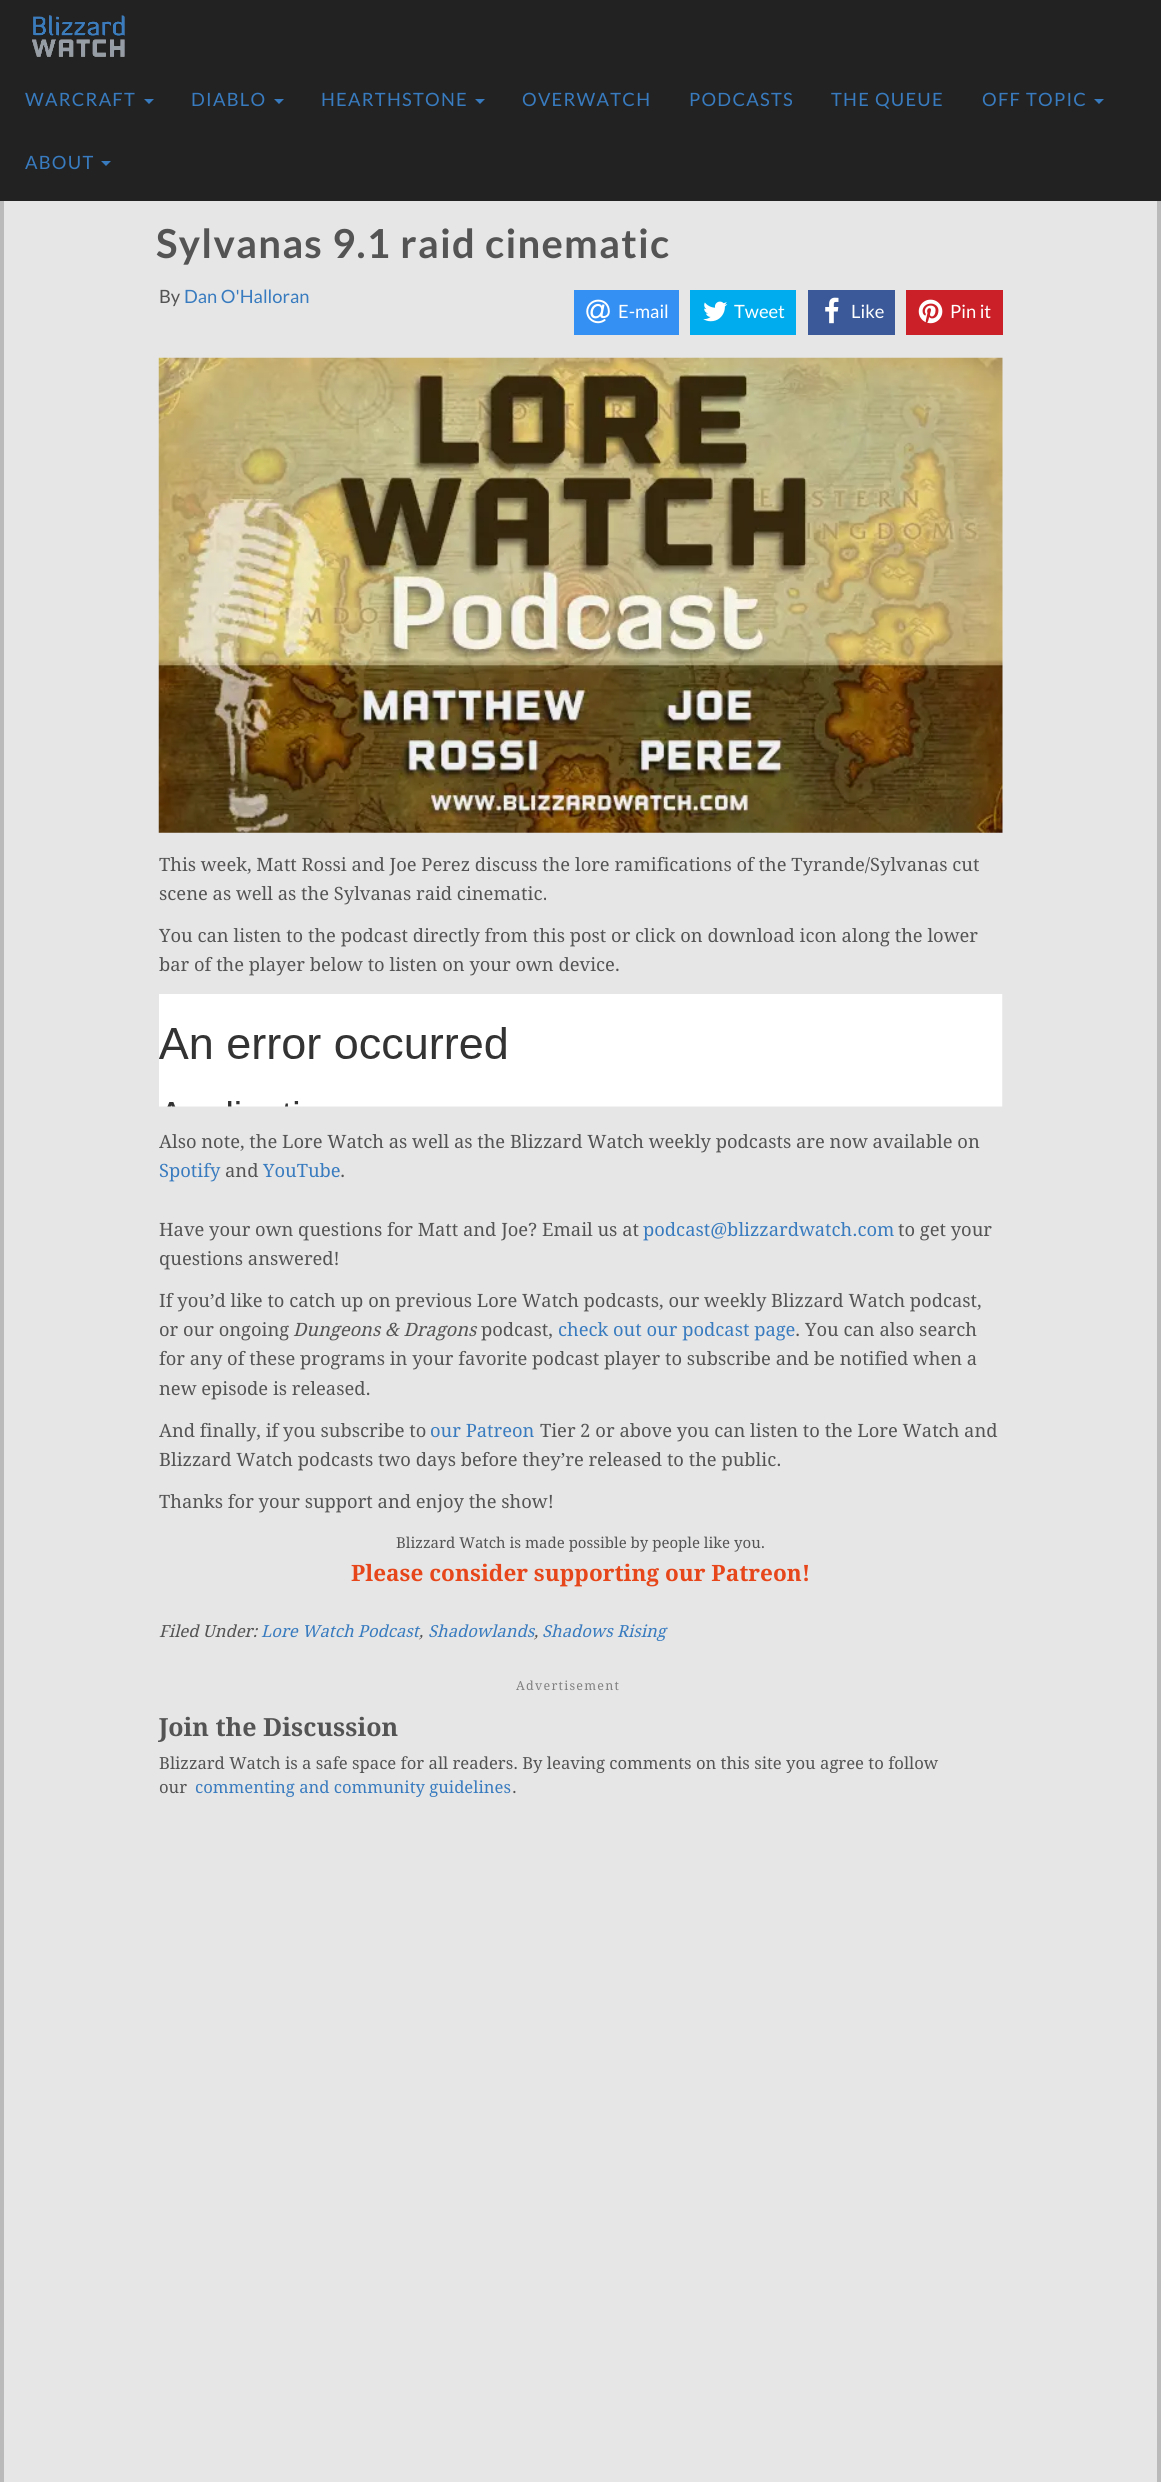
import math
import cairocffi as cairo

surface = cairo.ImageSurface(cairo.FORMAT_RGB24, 1161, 2482)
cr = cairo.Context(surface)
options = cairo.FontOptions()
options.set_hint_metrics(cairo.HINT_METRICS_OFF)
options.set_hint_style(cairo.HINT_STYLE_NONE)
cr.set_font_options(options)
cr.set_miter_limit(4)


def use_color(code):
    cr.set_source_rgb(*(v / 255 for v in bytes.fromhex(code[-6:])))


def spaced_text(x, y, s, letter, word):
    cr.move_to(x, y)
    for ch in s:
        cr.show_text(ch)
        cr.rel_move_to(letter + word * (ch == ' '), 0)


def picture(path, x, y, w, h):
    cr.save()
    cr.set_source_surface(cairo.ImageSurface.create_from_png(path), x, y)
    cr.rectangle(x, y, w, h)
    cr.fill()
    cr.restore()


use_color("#e6e6e6")
cr.paint()
cr.rectangle(2, 113, 1157, 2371)
use_color("#bababa")
cr.set_line_width(4)
cr.stroke()
use_color("#222222")
cr.rectangle(0, 0, 1161, 201)
cr.fill()
picture("img1.png", 32, 15, 93, 42)
cr.select_font_face("Lato")
cr.set_font_size(18.35)
use_color("#387bbf")
spaced_text(25, 106, "WARCRAFT", 1.25, 0)
cr.new_path()
cr.move_to(144, 99)
cr.line_to(154, 99)
cr.line_to(149, 104)
cr.close_path()
cr.fill()
spaced_text(191, 106, "DIABLO", 1.25, 0)
cr.new_path()
cr.move_to(274, 99)
cr.line_to(284, 99)
cr.line_to(279, 104)
cr.close_path()
cr.fill()
spaced_text(321, 106, "HEARTHSTONE", 1.25, 0)
cr.new_path()
cr.move_to(475, 99)
cr.line_to(485, 99)
cr.line_to(480, 104)
cr.close_path()
cr.fill()
spaced_text(522, 106, "OVERWATCH", 1.25, 0)
spaced_text(689, 106, "PODCASTS", 1.25, 0)
spaced_text(831, 106, "THE QUEUE", 1.25, 0)
spaced_text(982, 106, "OFF TOPIC", 1.25, 0)
cr.new_path()
cr.move_to(1094, 99)
cr.line_to(1104, 99)
cr.line_to(1099, 104)
cr.close_path()
cr.fill()
spaced_text(25, 169, "ABOUT", 1.25, 0)
cr.new_path()
cr.move_to(101, 161)
cr.line_to(111, 161)
cr.line_to(106, 166)
cr.close_path()
cr.fill()
cr.select_font_face("Lato", cairo.FONT_SLANT_NORMAL, cairo.FONT_WEIGHT_BOLD)
cr.set_font_size(40)
use_color("#545454")
spaced_text(156, 258, "Sylvanas 9.1 raid cinematic", 1.25, 0)
cr.select_font_face("Lato")
cr.set_font_size(18.35)
cr.move_to(159, 303)
cr.show_text("By")
use_color("#387bbf")
cr.move_to(184, 303)
cr.show_text("Dan O'Halloran")
use_color("#3490f3")
cr.rectangle(574, 290, 105, 45)
cr.fill()
picture("img2.png", 586, 299, 24, 25)
use_color("#ffffff")
cr.move_to(618, 318)
cr.show_text("E-mail")
use_color("#00aced")
cr.rectangle(690, 290, 106, 45)
cr.fill()
picture("img3.png", 703, 301, 25, 21)
use_color("#ffffff")
cr.move_to(734, 318)
cr.show_text("Tweet")
use_color("#3b5998")
cr.rectangle(808, 290, 87, 45)
cr.fill()
picture("img4.png", 825, 297, 14, 27)
use_color("#ffffff")
cr.move_to(851, 318)
cr.show_text("Like")
use_color("#cb2027")
cr.rectangle(906, 290, 97, 45)
cr.fill()
picture("img5.png", 918, 299, 25, 25)
use_color("#ffffff")
cr.move_to(950, 318)
cr.show_text("Pin it")
picture("img6.png", 158, 357, 845, 476)
cr.select_font_face("Droid Serif")
use_color("#545454")
cr.move_to(159, 871)
cr.show_text("This week, Matt Rossi and Joe Perez discuss the lore ramifications of the Tyrande/Sylvanas cut")
cr.move_to(159, 900)
cr.show_text("scene as well as the Sylvanas raid cinematic.")
cr.move_to(159, 942)
cr.show_text("You can listen to the podcast directly from this post or click on download icon along the lower")
cr.move_to(159, 971)
cr.show_text("bar of the player below to listen on your own device.")
picture("img7.png", 159, 994, 844, 113)
cr.move_to(159, 1148)
cr.show_text("Also note, the Lore Watch as well as the Blizzard Watch weekly podcasts are now available on")
use_color("#387bbf")
cr.move_to(159, 1177)
cr.show_text("Spotify")
use_color("#545454")
cr.move_to(225, 1177)
cr.show_text("and")
use_color("#387bbf")
cr.move_to(263, 1177)
cr.show_text("YouTube")
use_color("#545454")
cr.move_to(340, 1177)
cr.show_text(".")
cr.move_to(159, 1236)
cr.show_text("Have your own questions for Matt and Joe? Email us at")
use_color("#387bbf")
cr.move_to(643, 1236)
cr.show_text("podcast@blizzardwatch.com")
use_color("#545454")
cr.move_to(898, 1236)
cr.show_text("to get your")
cr.move_to(159, 1265)
cr.show_text("questions answered!")
cr.move_to(159, 1307)
cr.show_text("If you’d like to catch up on previous Lore Watch podcasts, our weekly Blizzard Watch podcast,")
cr.move_to(159, 1336)
cr.show_text("or our ongoing")
cr.select_font_face("Droid Serif", cairo.FONT_SLANT_ITALIC)
cr.move_to(293, 1336)
cr.show_text("Dungeons & Dragons")
cr.select_font_face("Droid Serif")
cr.move_to(481, 1336)
cr.show_text("podcast,")
use_color("#387bbf")
cr.move_to(558, 1336)
cr.show_text("check out our podcast page")
use_color("#545454")
cr.move_to(795, 1336)
cr.show_text(". You can also search")
cr.move_to(159, 1365)
cr.show_text("for any of these programs in your favorite podcast player to subscribe and be notified when a")
cr.move_to(159, 1395)
cr.show_text("new episode is released.")
cr.move_to(159, 1437)
cr.show_text("And finally, if you subscribe to")
use_color("#387bbf")
cr.move_to(430, 1437)
cr.show_text("our Patreon")
use_color("#545454")
cr.move_to(540, 1437)
cr.show_text("Tier 2 or above you can listen to the Lore Watch and")
cr.move_to(159, 1466)
cr.show_text("Blizzard Watch podcasts two days before they’re released to the public.")
cr.move_to(159, 1508)
cr.show_text("Thanks for your support and enjoy the show!")
cr.set_font_size(15)
cr.move_to(396, 1548)
cr.show_text("Blizzard Watch is made possible by people like you.")
cr.select_font_face("Droid Serif", cairo.FONT_SLANT_NORMAL, cairo.FONT_WEIGHT_BOLD)
cr.set_font_size(22.5)
use_color("#e6461a")
cr.move_to(351, 1581)
cr.show_text("Please consider supporting our Patreon!")
cr.select_font_face("Droid Serif", cairo.FONT_SLANT_ITALIC)
cr.set_font_size(16.65)
use_color("#545454")
cr.move_to(159, 1637)
cr.show_text("Filed Under:")
use_color("#387bbf")
cr.move_to(261, 1637)
cr.show_text("Lore Watch Podcast")
cr.move_to(428, 1637)
cr.show_text("Shadowlands")
cr.move_to(542, 1637)
cr.show_text("Shadows Rising")
use_color("#545454")
cr.move_to(419, 1637)
cr.show_text(",")
cr.move_to(534, 1637)
cr.show_text(",")
cr.select_font_face("Droid Serif")
cr.set_font_size(12.5)
use_color("#808080")
spaced_text(516, 1690, "Advertisement", 1.25, 0)
cr.select_font_face("Droid Serif", cairo.FONT_SLANT_NORMAL, cairo.FONT_WEIGHT_BOLD)
cr.set_font_size(25)
use_color("#545454")
cr.move_to(159, 1736)
cr.show_text("Join the Discussion")
cr.select_font_face("Droid Serif")
cr.set_font_size(16.65)
cr.move_to(159, 1769)
cr.show_text("Blizzard Watch is a safe space for all readers. By leaving comments on this site you agree to follow")
cr.move_to(159, 1793)
cr.show_text("our")
use_color("#387bbf")
cr.move_to(195, 1793)
cr.show_text("commenting and community guidelines")
use_color("#545454")
cr.move_to(512, 1793)
cr.show_text(".")
surface.write_to_png("result.png")
